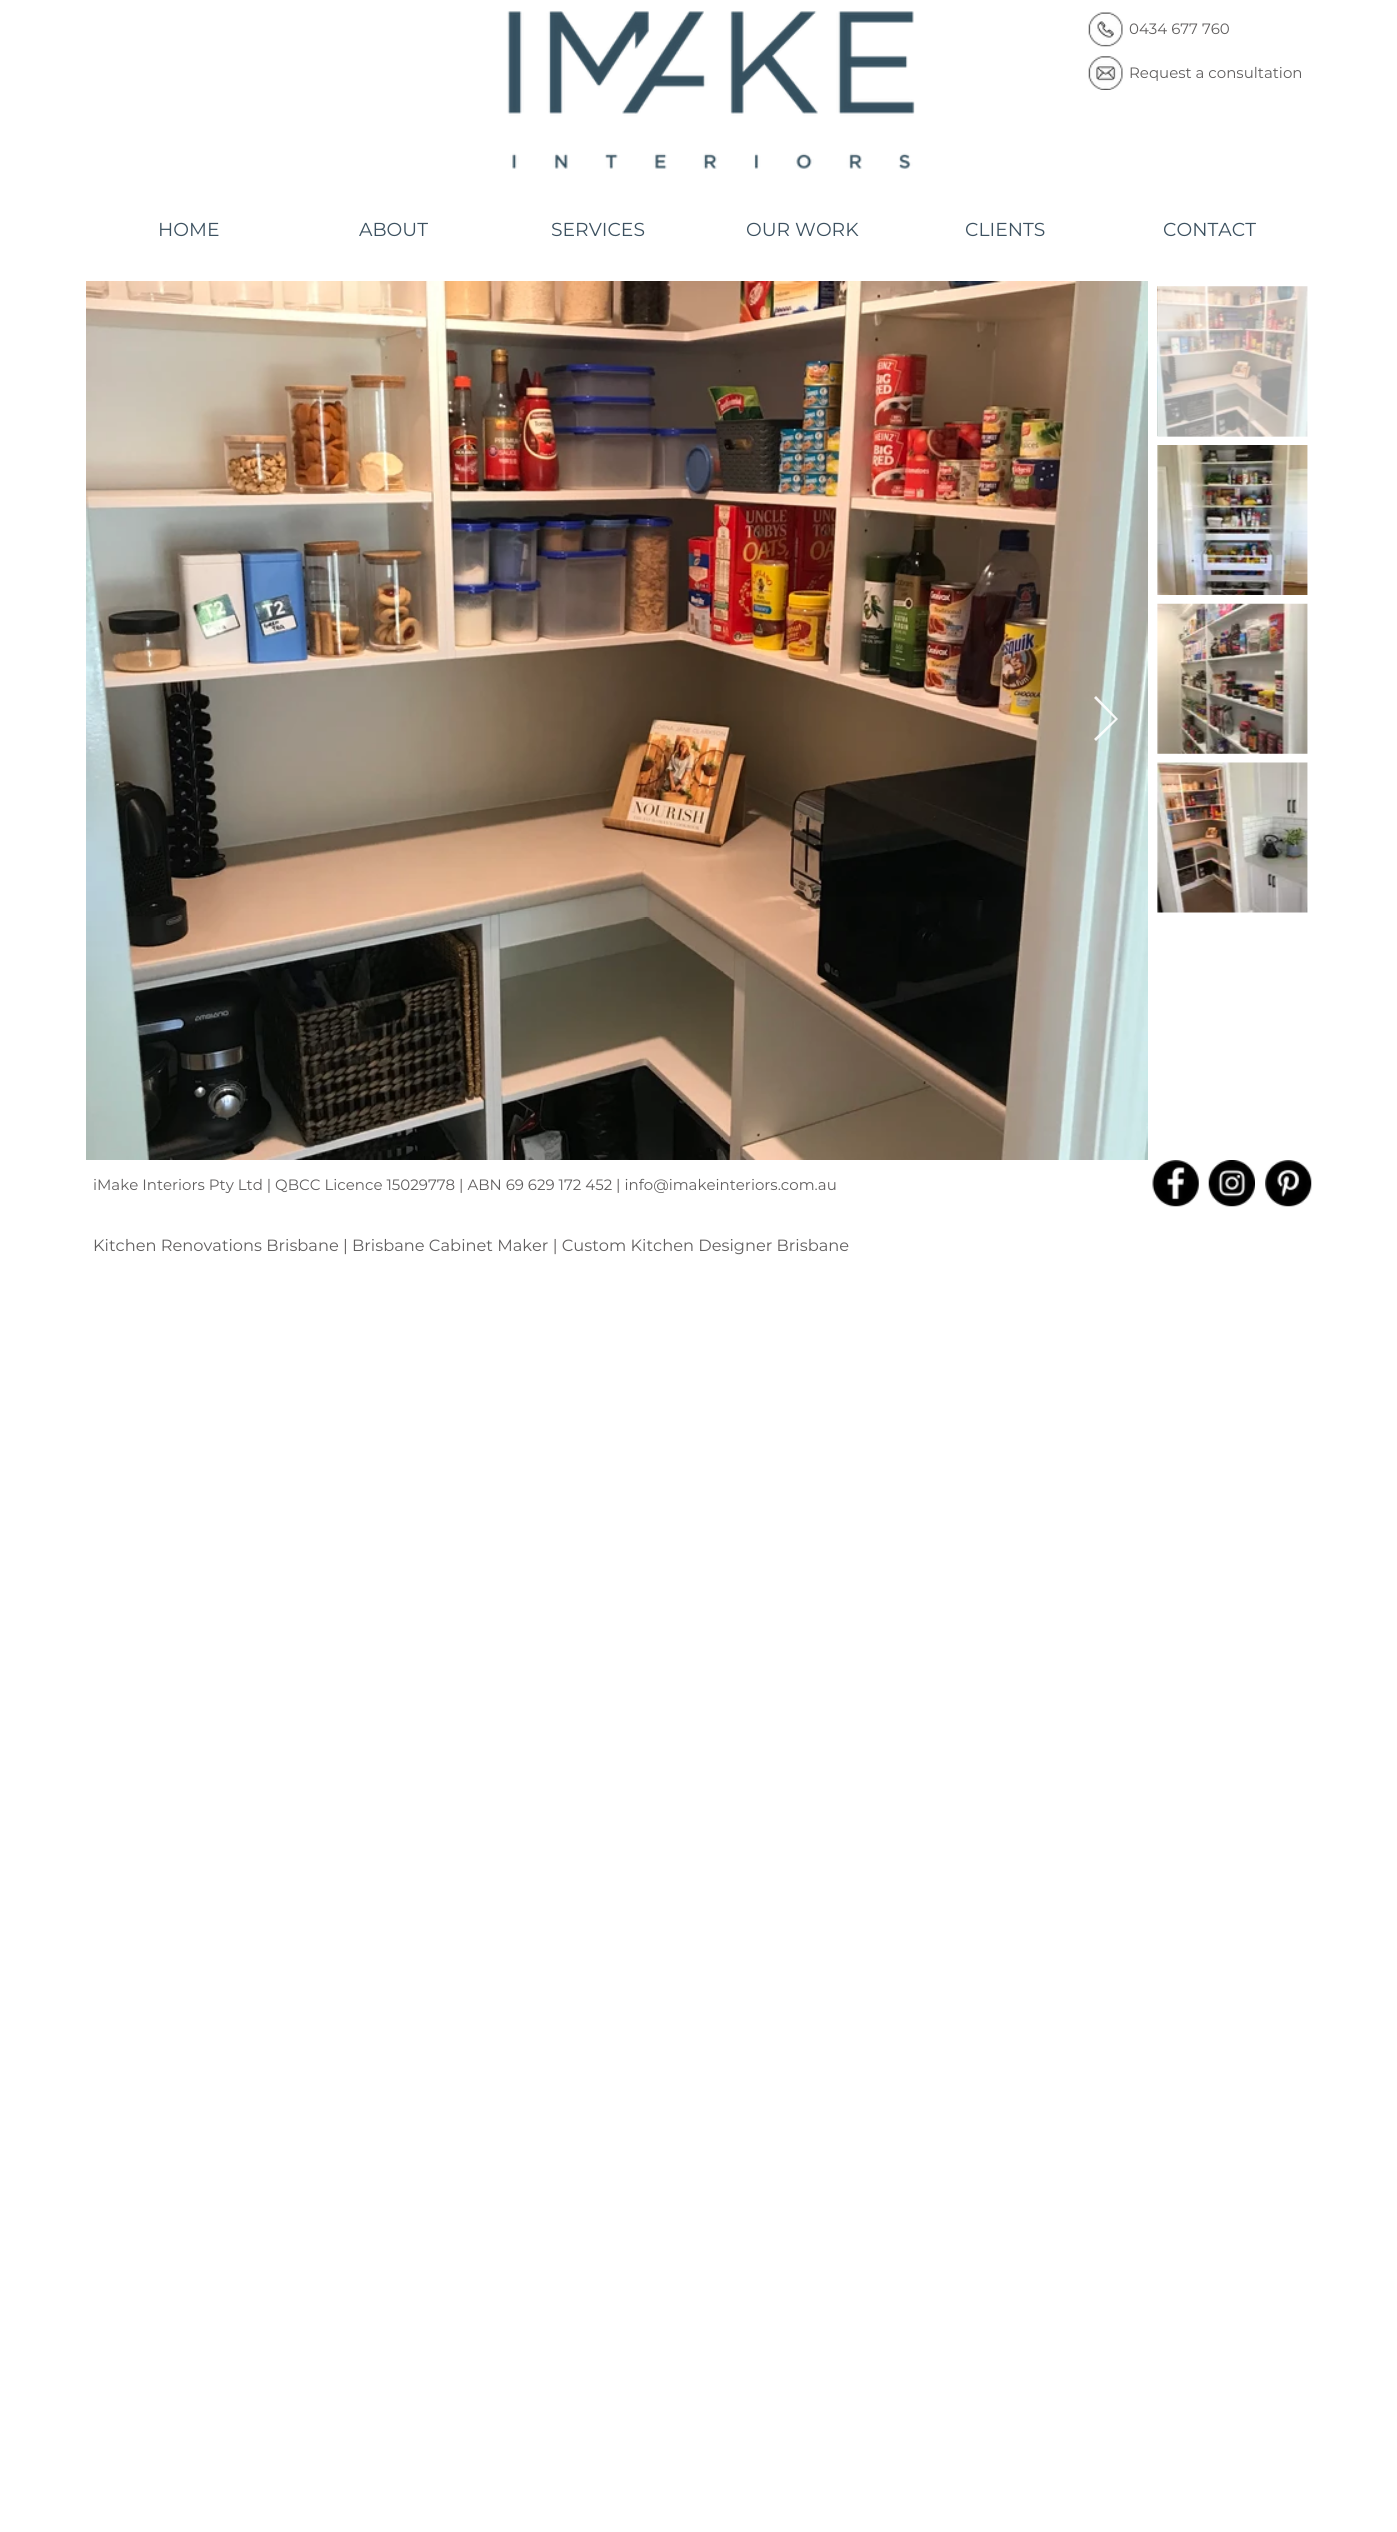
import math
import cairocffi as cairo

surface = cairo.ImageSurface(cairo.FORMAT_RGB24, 1397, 2532)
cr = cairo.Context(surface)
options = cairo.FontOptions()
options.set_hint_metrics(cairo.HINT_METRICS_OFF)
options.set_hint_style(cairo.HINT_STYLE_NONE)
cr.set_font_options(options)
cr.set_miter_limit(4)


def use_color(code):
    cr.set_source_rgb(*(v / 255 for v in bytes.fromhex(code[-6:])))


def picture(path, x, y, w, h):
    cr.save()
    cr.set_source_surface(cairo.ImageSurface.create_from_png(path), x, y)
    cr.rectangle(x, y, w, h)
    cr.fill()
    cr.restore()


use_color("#ffffff")
cr.paint()
picture("img1.png", 507, 11, 408, 158)
picture("img2.png", 1088, 12, 35, 35)
cr.select_font_face("Montserrat")
cr.set_font_size(15)
use_color("#605e5e")
cr.move_to(1129, 34)
cr.show_text("0434 677 760")
picture("img3.png", 1088, 56, 35, 34)
cr.move_to(1129, 78)
cr.show_text("Request a consultation")
cr.set_font_size(18.75)
use_color("#3c5160")
cr.move_to(158, 236)
cr.show_text("HOME")
cr.move_to(359, 236)
cr.show_text("ABOUT")
cr.move_to(551, 236)
cr.show_text("SERVICES")
cr.move_to(746, 236)
cr.show_text("OUR WORK")
cr.move_to(965, 236)
cr.show_text("CLIENTS")
cr.move_to(1163, 236)
cr.show_text("CONTACT")
picture("img4.png", 86, 281, 1062, 879)
cr.set_source_rgba(1, 1, 1, 0.9)
cr.new_path()
cr.move_to(1094, 698)
cr.line_to(1096, 696)
cr.line_to(1118, 719)
cr.line_to(1096, 741)
cr.line_to(1094, 739)
cr.line_to(1115, 719)
cr.close_path()
cr.fill()
picture("img5.png", 1157, 286, 151, 151)
picture("img6.png", 1157, 445, 151, 150)
picture("img7.png", 1157, 603, 151, 151)
picture("img8.png", 1157, 762, 151, 151)
cr.set_font_size(15)
use_color("#605e5e")
cr.move_to(93, 1190)
cr.show_text("iMake Interiors Pty Ltd | QBCC Licence 15029778 | ABN 69 629 172 452 | info@imakeinteriors.com.au")
picture("img9.png", 1152, 1160, 47, 47)
picture("img10.png", 1208, 1160, 47, 47)
picture("img11.png", 1265, 1160, 47, 47)
cr.set_font_size(16.25)
cr.move_to(93, 1251)
cr.show_text("Kitchen Renovations Brisbane | Brisbane Cabinet Maker | Custom Kitchen Designer Brisbane")
surface.write_to_png("result.png")
